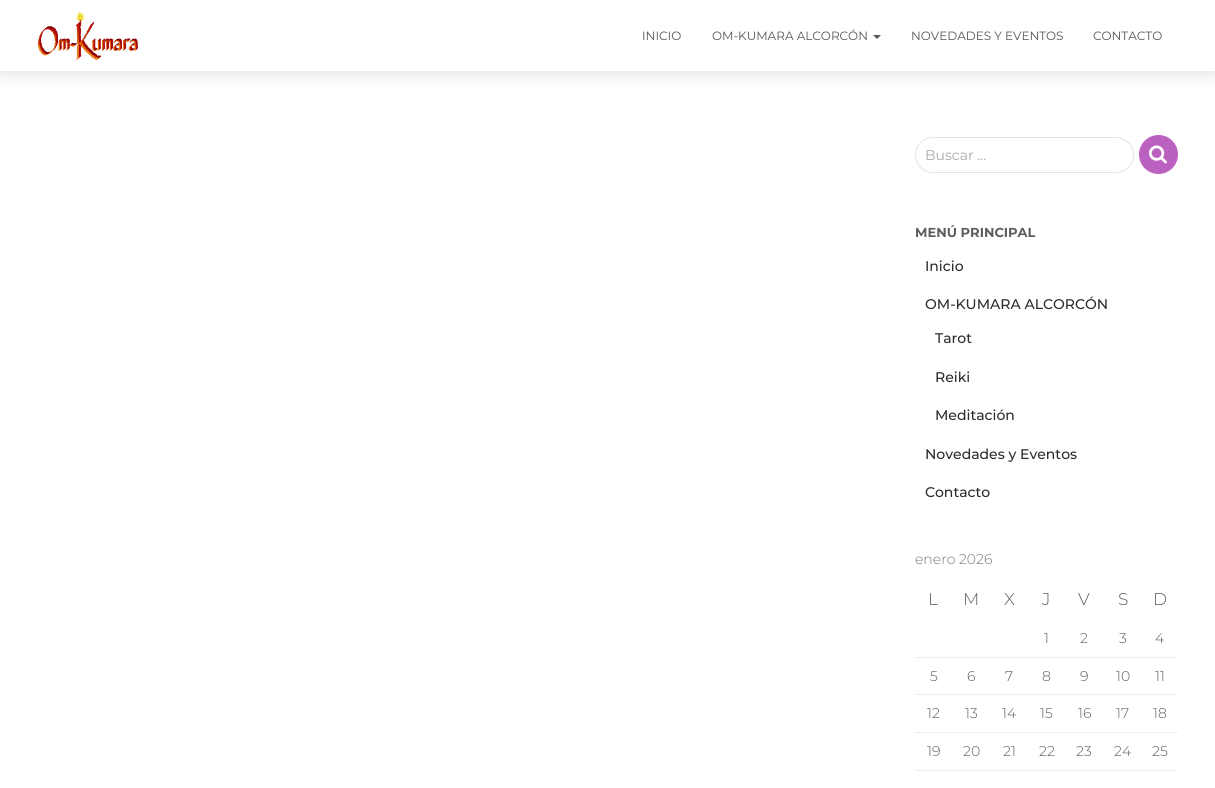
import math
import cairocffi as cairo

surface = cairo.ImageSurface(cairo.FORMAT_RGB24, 1215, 788)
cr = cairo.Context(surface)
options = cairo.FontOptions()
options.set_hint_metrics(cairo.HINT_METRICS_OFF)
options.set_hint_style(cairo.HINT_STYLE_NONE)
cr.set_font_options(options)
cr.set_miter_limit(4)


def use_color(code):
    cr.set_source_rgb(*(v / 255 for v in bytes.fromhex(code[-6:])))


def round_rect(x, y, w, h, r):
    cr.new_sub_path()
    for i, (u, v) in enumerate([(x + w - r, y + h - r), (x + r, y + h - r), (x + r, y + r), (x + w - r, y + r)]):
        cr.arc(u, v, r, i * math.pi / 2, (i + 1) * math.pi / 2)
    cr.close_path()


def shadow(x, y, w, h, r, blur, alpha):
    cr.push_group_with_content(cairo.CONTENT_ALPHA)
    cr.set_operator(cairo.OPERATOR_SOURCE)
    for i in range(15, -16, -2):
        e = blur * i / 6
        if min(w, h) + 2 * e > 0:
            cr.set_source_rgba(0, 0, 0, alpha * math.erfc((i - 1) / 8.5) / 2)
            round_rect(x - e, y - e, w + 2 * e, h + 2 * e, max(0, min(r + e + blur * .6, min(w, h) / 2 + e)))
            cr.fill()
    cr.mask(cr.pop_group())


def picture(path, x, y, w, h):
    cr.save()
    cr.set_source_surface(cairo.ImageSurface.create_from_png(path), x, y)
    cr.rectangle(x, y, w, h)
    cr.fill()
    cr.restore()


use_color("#ffffff")
cr.paint()
use_color("#000000")
shadow(0, 0, 1215, 71, 0, 10, 0.15)
use_color("#ffffff")
cr.rectangle(0, 0, 1215, 71)
cr.fill()
picture("img1.png", 37, 11, 101, 49)
cr.select_font_face("Montserrat")
cr.set_font_size(12)
use_color("#555555")
cr.move_to(642, 40)
cr.show_text("INICIO")
cr.move_to(712, 40)
cr.show_text("OM-KUMARA ALCORCÓN")
cr.new_path()
cr.move_to(873, 35)
cr.line_to(881, 35)
cr.line_to(877, 39)
cr.close_path()
cr.fill()
cr.move_to(911, 40)
cr.show_text("NOVEDADES Y EVENTOS")
cr.move_to(1093, 40)
cr.show_text("CONTACTO")
round_rect(915.5, 137.5, 218, 35, 17.5)
use_color("#e3e3e3")
cr.set_line_width(1)
cr.stroke()
cr.set_font_size(14)
use_color("#aaaaaa")
cr.move_to(925, 160)
cr.show_text("Buscar …")
use_color("#bb62c1")
cr.new_path()
cr.arc(1158.5, 154.5, 19.5, 0, 2 * math.pi)
cr.fill()
picture("img2.png", 1149, 145, 18, 19)
cr.select_font_face("Montserrat", cairo.FONT_SLANT_NORMAL, cairo.FONT_WEIGHT_BOLD)
cr.set_font_size(13)
use_color("#5e5e5e")
cr.move_to(915, 237)
cr.show_text("MENÚ PRINCIPAL")
cr.select_font_face("Montserrat Medium")
cr.set_font_size(14)
use_color("#2c2c2c")
cr.move_to(925, 271)
cr.show_text("Inicio")
cr.move_to(925, 309)
cr.show_text("OM-KUMARA ALCORCÓN")
cr.move_to(935, 343)
cr.show_text("Tarot")
cr.move_to(935, 382)
cr.show_text("Reiki")
cr.move_to(935, 420)
cr.show_text("Meditación")
cr.move_to(925, 459)
cr.show_text("Novedades y Eventos")
cr.move_to(925, 497)
cr.show_text("Contacto")
cr.select_font_face("Montserrat Light")
use_color("#777777")
cr.move_to(915, 564)
cr.show_text("enero 2026")
cr.set_font_size(17)
use_color("#5e5e5e")
cr.move_to(928, 605)
cr.show_text("L")
cr.move_to(963, 605)
cr.show_text("M")
cr.move_to(1004, 605)
cr.show_text("X")
cr.move_to(1042, 605)
cr.show_text("J")
cr.move_to(1078, 605)
cr.show_text("V")
cr.move_to(1118, 605)
cr.show_text("S")
cr.move_to(1153, 605)
cr.show_text("D")
use_color("#eeeeee")
cr.rectangle(915, 657, 263, 1)
cr.fill()
cr.set_font_size(14)
use_color("#5e5e5e")
cr.move_to(1044, 643)
cr.show_text("1")
cr.move_to(1080, 643)
cr.show_text("2")
cr.move_to(1119, 643)
cr.show_text("3")
cr.move_to(1155, 643)
cr.show_text("4")
use_color("#eeeeee")
cr.rectangle(915, 694, 263, 1)
cr.fill()
use_color("#5e5e5e")
cr.move_to(930, 681)
cr.show_text("5")
cr.move_to(967, 681)
cr.show_text("6")
cr.move_to(1005, 681)
cr.show_text("7")
cr.move_to(1042, 681)
cr.show_text("8")
cr.move_to(1080, 681)
cr.show_text("9")
cr.move_to(1116, 681)
cr.show_text("10")
cr.move_to(1155, 681)
cr.show_text("11")
use_color("#eeeeee")
cr.rectangle(915, 732, 263, 1)
cr.fill()
use_color("#5e5e5e")
cr.move_to(927, 718)
cr.show_text("12")
cr.move_to(965, 718)
cr.show_text("13")
cr.move_to(1002, 718)
cr.show_text("14")
cr.move_to(1040, 718)
cr.show_text("15")
cr.move_to(1078, 718)
cr.show_text("16")
cr.move_to(1116, 718)
cr.show_text("17")
cr.move_to(1153, 718)
cr.show_text("18")
use_color("#eeeeee")
cr.rectangle(915, 770, 263, 1)
cr.fill()
use_color("#5e5e5e")
cr.move_to(927, 756)
cr.show_text("19")
cr.move_to(963, 756)
cr.show_text("20")
cr.move_to(1003, 756)
cr.show_text("21")
cr.move_to(1039, 756)
cr.show_text("22")
cr.move_to(1076, 756)
cr.show_text("23")
cr.move_to(1114, 756)
cr.show_text("24")
cr.move_to(1152, 756)
cr.show_text("25")
surface.write_to_png("result.png")
